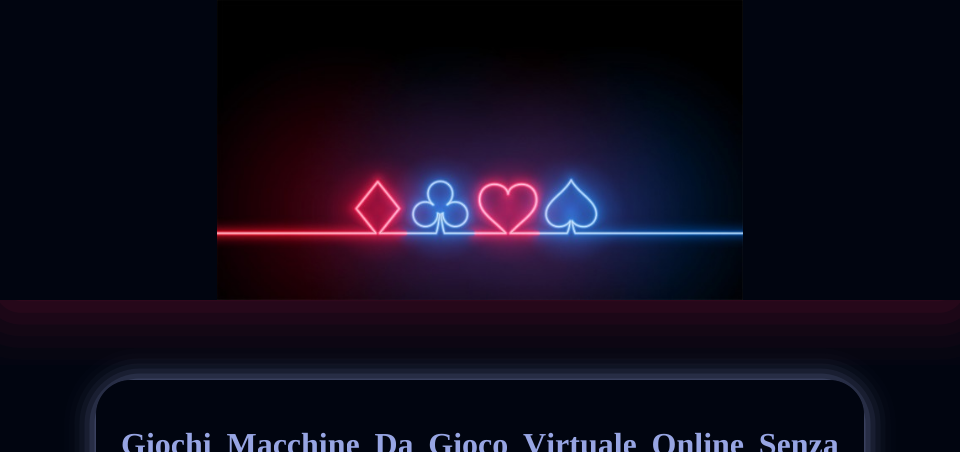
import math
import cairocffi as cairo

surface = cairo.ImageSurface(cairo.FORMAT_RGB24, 960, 452)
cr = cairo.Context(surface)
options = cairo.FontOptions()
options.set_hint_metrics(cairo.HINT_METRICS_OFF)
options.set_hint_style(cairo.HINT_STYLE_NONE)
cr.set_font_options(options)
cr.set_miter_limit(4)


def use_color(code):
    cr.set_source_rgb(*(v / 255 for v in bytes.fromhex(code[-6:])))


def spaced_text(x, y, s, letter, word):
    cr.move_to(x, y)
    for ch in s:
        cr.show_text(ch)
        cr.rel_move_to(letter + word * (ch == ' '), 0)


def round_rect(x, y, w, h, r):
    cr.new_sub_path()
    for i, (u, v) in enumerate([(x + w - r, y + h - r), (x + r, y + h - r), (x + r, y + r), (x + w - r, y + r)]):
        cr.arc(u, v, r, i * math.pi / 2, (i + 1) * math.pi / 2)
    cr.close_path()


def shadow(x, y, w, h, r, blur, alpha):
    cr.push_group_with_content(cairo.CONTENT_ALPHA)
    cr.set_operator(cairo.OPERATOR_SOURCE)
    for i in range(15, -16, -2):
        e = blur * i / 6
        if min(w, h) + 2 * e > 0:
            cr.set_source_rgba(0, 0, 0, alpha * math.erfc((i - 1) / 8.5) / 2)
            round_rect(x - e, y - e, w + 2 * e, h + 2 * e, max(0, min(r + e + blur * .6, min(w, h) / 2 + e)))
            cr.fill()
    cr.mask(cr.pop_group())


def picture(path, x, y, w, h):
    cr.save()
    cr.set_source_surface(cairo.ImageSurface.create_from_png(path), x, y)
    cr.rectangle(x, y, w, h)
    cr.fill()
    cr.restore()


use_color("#010510")
cr.paint()
cr.save()
cr.rectangle(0, 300, 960, 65)
cr.clip()
use_color("#b81541")
shadow(0, 7, 960, 300, 0, 35, 0.4)
cr.restore()
picture("img1.png", 217, 0, 526, 300)
cr.save()
cr.set_fill_rule(cairo.FILL_RULE_EVEN_ODD)
cr.new_path()
cr.move_to(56, 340)
cr.line_to(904, 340)
cr.line_to(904, 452)
cr.line_to(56, 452)
cr.close_path()
cr.move_to(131, 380)
cr.line_to(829, 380)
cr.curve_to(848.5, 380, 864, 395.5, 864, 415)
cr.line_to(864, 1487)
cr.curve_to(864, 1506.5, 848.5, 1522, 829, 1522)
cr.line_to(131, 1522)
cr.curve_to(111.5, 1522, 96, 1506.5, 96, 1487)
cr.line_to(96, 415)
cr.curve_to(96, 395.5, 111.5, 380, 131, 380)
cr.close_path()
cr.clip()
use_color("#97a5e3")
shadow(102, 386, 756, 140, 29, 15, 1)
cr.restore()
cr.select_font_face("Liberation Serif", cairo.FONT_SLANT_NORMAL, cairo.FONT_WEIGHT_BOLD)
cr.set_font_size(32)
use_color("#97a5e3")
spaced_text(121, 455, "Giochi Macchine Da Gioco Virtuale Online Senza", 0, 6.75)
surface.write_to_png("result.png")
